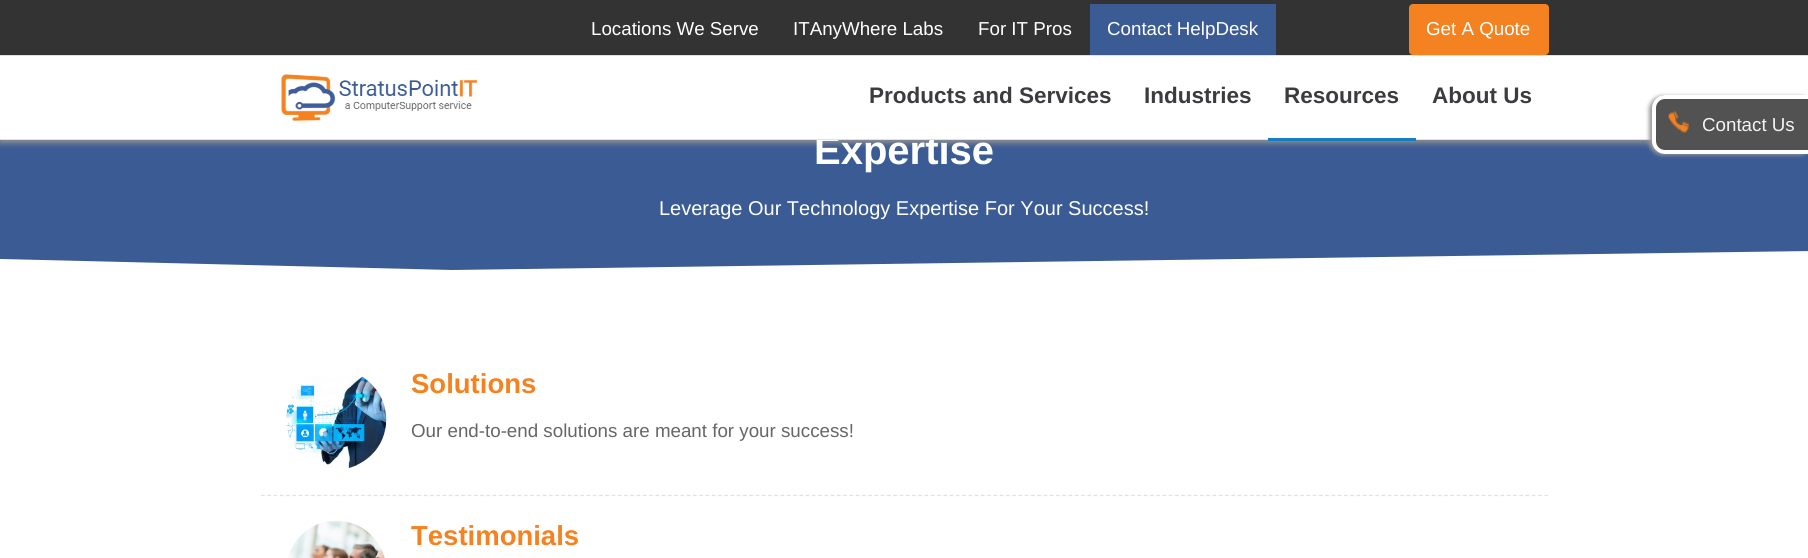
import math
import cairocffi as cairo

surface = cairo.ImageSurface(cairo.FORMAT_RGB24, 1808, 558)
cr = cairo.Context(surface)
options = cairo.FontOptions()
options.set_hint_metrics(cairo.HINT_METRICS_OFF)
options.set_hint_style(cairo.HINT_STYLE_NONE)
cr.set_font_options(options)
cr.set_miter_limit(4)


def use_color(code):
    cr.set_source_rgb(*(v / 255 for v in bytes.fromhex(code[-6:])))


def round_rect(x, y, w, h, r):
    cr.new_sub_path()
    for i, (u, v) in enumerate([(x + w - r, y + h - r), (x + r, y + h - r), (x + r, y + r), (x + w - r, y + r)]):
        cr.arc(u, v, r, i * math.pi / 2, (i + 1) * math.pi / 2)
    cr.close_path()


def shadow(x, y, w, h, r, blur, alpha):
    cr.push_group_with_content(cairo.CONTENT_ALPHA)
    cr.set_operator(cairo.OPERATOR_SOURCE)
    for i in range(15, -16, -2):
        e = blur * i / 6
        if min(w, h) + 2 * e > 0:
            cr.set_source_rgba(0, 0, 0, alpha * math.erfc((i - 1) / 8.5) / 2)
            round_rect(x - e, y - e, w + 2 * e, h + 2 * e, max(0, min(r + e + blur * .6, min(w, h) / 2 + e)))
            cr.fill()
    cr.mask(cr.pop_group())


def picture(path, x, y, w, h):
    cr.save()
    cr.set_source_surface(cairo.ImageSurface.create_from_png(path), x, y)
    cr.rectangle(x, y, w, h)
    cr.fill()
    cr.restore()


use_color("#ffffff")
cr.paint()
use_color("#3b5b94")
cr.new_path()
cr.move_to(0, 66)
cr.line_to(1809, 66)
cr.line_to(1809, 251)
cr.line_to(452, 270)
cr.line_to(0, 259)
cr.close_path()
cr.fill()
use_color("#ffffff")
cr.rectangle(0, 66, 1808, 73)
cr.fill()
cr.save()
cr.rectangle(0, 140, 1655, 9)
cr.clip()
use_color("#929292")
shadow(0, 55, 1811, 88, 0, 3, 1)
cr.restore()
use_color("#333333")
cr.rectangle(0, 0, 1808, 55)
cr.fill()
use_color("#e1e1e1")
cr.rectangle(0, 55, 1808, 1)
cr.fill()
cr.select_font_face("Liberation Sans")
cr.set_font_size(18.75)
use_color("#ffffff")
cr.move_to(591, 35)
cr.show_text("Locations We Serve")
cr.move_to(793, 35)
cr.show_text("ITAnyWhere Labs")
cr.move_to(978, 35)
cr.show_text("For IT Pros")
use_color("#3b5b94")
cr.rectangle(1090, 4, 186, 51)
cr.fill()
use_color("#ffffff")
cr.move_to(1107, 35)
cr.show_text("Contact HelpDesk")
use_color("#f58220")
round_rect(1409, 4, 140, 51, 4)
cr.fill()
use_color("#ffffff")
cr.move_to(1426, 35)
cr.show_text("Get A Quote")
cr.select_font_face("Liberation Sans", cairo.FONT_SLANT_NORMAL, cairo.FONT_WEIGHT_BOLD)
cr.set_font_size(40)
cr.move_to(814, 164)
cr.show_text("Expertise")
use_color("#e1e1e1")
cr.rectangle(0, 139, 1652, 1)
cr.fill()
picture("img1.png", 281, 74, 196, 47)
cr.set_font_size(22.5)
use_color("#3c3c40")
cr.move_to(869, 103)
cr.show_text("Products and Services")
cr.move_to(1144, 103)
cr.show_text("Industries")
cr.move_to(1284, 103)
cr.show_text("Resources")
use_color("#167ebe")
cr.rectangle(1268, 138, 148, 3)
cr.fill()
use_color("#3c3c40")
cr.move_to(1432, 103)
cr.show_text("About Us")
cr.select_font_face("Liberation Sans")
cr.set_font_size(20)
use_color("#ffffff")
cr.move_to(659, 215)
cr.show_text("Leverage Our Technology Expertise For Your Success!")
cr.new_path()
cr.move_to(261, 495.5)
cr.line_to(1549, 495.5)
use_color("#e1e1e1")
cr.set_line_width(1.2)
cr.set_dash([3.75, 2.51])
cr.stroke()
picture("img2.png", 286, 375, 101, 93)
cr.select_font_face("Liberation Sans", cairo.FONT_SLANT_NORMAL, cairo.FONT_WEIGHT_BOLD)
cr.set_font_size(27.5)
use_color("#f58220")
cr.move_to(411, 393)
cr.show_text("Solutions")
cr.select_font_face("Liberation Sans")
cr.set_font_size(18.75)
use_color("#666666")
cr.move_to(411, 437)
cr.show_text("Our end-to-end solutions are meant for your success!")
picture("img3.png", 288, 520, 97, 38)
cr.save()
cr.rectangle(411, 521, 1113, 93)
cr.clip()
cr.select_font_face("Liberation Sans", cairo.FONT_SLANT_NORMAL, cairo.FONT_WEIGHT_BOLD)
cr.set_font_size(27.5)
use_color("#f58220")
cr.move_to(411, 545)
cr.show_text("Testimonials")
cr.restore()
use_color("#999999")
shadow(1649, 96, 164, 59, 13, 2, 1)
use_color("#525252")
cr.new_path()
cr.move_to(1666, 95)
cr.line_to(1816, 95)
cr.line_to(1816, 154)
cr.line_to(1666, 154)
cr.curve_to(1659, 154, 1653, 148, 1653, 141)
cr.line_to(1653, 108)
cr.curve_to(1653, 101, 1659, 95, 1666, 95)
cr.close_path()
cr.fill()
use_color("#ffffff")
cr.set_fill_rule(cairo.FILL_RULE_EVEN_ODD)
cr.new_path()
cr.move_to(1665, 95)
cr.line_to(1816, 95)
cr.line_to(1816, 154)
cr.line_to(1665, 154)
cr.curve_to(1658, 154, 1652, 148, 1652, 141)
cr.line_to(1652, 108)
cr.curve_to(1652, 101, 1658, 95, 1665, 95)
cr.close_path()
cr.move_to(1665, 99)
cr.line_to(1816, 99)
cr.line_to(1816, 150)
cr.line_to(1665, 150)
cr.curve_to(1660, 150, 1656, 146, 1656, 141)
cr.line_to(1656, 108)
cr.curve_to(1656, 103, 1660, 99, 1665, 99)
cr.close_path()
cr.fill()
picture("img4.png", 1668, 111, 21, 22)
use_color("#f3f3f3")
cr.move_to(1702, 131)
cr.show_text("Contact Us")
surface.write_to_png("result.png")
